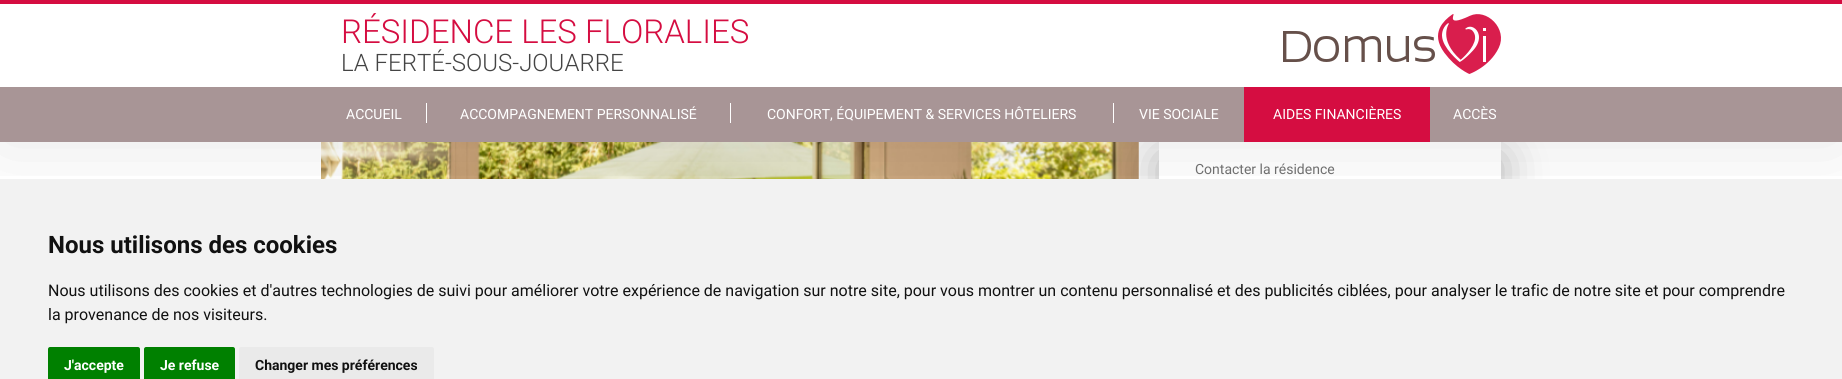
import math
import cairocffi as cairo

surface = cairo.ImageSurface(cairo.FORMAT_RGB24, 1842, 379)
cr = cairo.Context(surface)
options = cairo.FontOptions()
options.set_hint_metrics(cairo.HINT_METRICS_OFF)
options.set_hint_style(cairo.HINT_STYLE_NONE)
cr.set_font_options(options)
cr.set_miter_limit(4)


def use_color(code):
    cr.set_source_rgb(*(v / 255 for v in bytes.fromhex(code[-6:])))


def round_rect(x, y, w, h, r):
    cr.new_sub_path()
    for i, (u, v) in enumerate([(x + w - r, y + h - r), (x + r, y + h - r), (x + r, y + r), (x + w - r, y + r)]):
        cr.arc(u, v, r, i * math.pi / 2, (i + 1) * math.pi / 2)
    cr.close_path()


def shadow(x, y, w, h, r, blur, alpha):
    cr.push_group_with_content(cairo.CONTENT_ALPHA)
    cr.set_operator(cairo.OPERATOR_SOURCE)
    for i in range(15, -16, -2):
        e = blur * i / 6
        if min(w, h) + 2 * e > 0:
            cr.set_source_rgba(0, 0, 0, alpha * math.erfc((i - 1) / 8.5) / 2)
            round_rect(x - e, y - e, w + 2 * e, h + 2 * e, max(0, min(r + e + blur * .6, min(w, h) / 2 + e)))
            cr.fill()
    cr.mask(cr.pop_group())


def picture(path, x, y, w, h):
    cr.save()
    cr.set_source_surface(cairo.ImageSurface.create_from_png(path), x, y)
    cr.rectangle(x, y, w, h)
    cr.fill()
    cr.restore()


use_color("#ffffff")
cr.paint()
picture("img2.png", 321, 142, 818, 37)
cr.save()
cr.rectangle(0, 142, 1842, 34)
cr.clip()
use_color("#000000")
shadow(0, 0, 1842, 142, 0, 40, 0.1)
cr.restore()
use_color("#d50d41")
cr.rectangle(0, 0, 1842, 4)
cr.fill()
cr.select_font_face("Roboto Light")
cr.set_font_size(33)
cr.move_to(341, 43)
cr.show_text("RÉSIDENCE LES FLORALIES")
cr.set_font_size(24)
use_color("#444444")
cr.move_to(341, 71)
cr.show_text("LA FERTÉ-SOUS-JOUARRE")
picture("img1.png", 1283, 14, 218, 60)
cr.save()
cr.set_fill_rule(cairo.FILL_RULE_EVEN_ODD)
cr.new_path()
cr.move_to(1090, 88)
cr.line_to(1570, 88)
cr.line_to(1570, 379)
cr.line_to(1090, 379)
cr.close_path()
cr.move_to(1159, 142)
cr.line_to(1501, 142)
cr.line_to(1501, 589)
cr.line_to(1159, 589)
cr.close_path()
cr.clip()
use_color("#000000")
shadow(1159, 157, 342, 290, 0, 22.5, 0.3)
cr.restore()
use_color("#a89596")
cr.rectangle(0, 87, 1842, 55)
cr.fill()
cr.select_font_face("Roboto")
cr.set_font_size(14)
use_color("#ffffff")
cr.move_to(346, 119)
cr.show_text("ACCUEIL")
cr.rectangle(426, 103, 1, 20)
cr.fill()
cr.move_to(460, 119)
cr.show_text("ACCOMPAGNEMENT PERSONNALISÉ")
cr.rectangle(730, 103, 1, 20)
cr.fill()
cr.move_to(767, 119)
cr.show_text("CONFORT, ÉQUIPEMENT & SERVICES HÔTELIERS")
cr.rectangle(1113, 103, 1, 20)
cr.fill()
cr.move_to(1139, 119)
cr.show_text("VIE SOCIALE")
use_color("#d50d41")
cr.rectangle(1244, 87, 186, 55)
cr.fill()
use_color("#ffffff")
cr.move_to(1273, 119)
cr.show_text("AIDES FINANCIÈRES")
cr.move_to(1453, 119)
cr.show_text("ACCÈS")
use_color("#6f6f6f")
cr.move_to(1195, 174)
cr.show_text("Contacter la résidence")
use_color("#f2f2f2")
cr.rectangle(0, 179, 1842, 200)
cr.fill()
cr.select_font_face("Roboto", cairo.FONT_SLANT_NORMAL, cairo.FONT_WEIGHT_BOLD)
cr.set_font_size(24)
use_color("#111111")
cr.move_to(48, 253)
cr.show_text("Nous utilisons des cookies")
cr.select_font_face("Roboto")
cr.set_font_size(16)
cr.move_to(48, 296)
cr.show_text("Nous utilisons des cookies et d'autres technologies de suivi pour améliorer votre expérience de navigation sur notre site, pour vous montrer un contenu personnalisé et des publicités ciblées, pour analyser le trafic de notre site et pour comprendre")
cr.move_to(48, 320)
cr.show_text("la provenance de nos visiteurs.")
use_color("#008000")
cr.new_path()
cr.move_to(50, 347)
cr.line_to(138, 347)
cr.curve_to(139, 347, 140, 348, 140, 349)
cr.line_to(140, 379)
cr.line_to(48, 379)
cr.line_to(48, 349)
cr.curve_to(48, 348, 49, 347, 50, 347)
cr.close_path()
cr.fill()
cr.select_font_face("Roboto", cairo.FONT_SLANT_NORMAL, cairo.FONT_WEIGHT_BOLD)
cr.set_font_size(14)
use_color("#ffffff")
cr.move_to(64, 370)
cr.show_text("J'accepte")
use_color("#008000")
cr.new_path()
cr.move_to(146, 347)
cr.line_to(233, 347)
cr.curve_to(234, 347, 235, 348, 235, 349)
cr.line_to(235, 379)
cr.line_to(144, 379)
cr.line_to(144, 349)
cr.curve_to(144, 348, 145, 347, 146, 347)
cr.close_path()
cr.fill()
use_color("#ffffff")
cr.move_to(160, 370)
cr.show_text("Je refuse")
use_color("#eaeaea")
cr.new_path()
cr.move_to(241, 347)
cr.line_to(432, 347)
cr.curve_to(433, 347, 434, 348, 434, 349)
cr.line_to(434, 379)
cr.line_to(239, 379)
cr.line_to(239, 349)
cr.curve_to(239, 348, 240, 347, 241, 347)
cr.close_path()
cr.fill()
use_color("#111111")
cr.move_to(255, 370)
cr.show_text("Changer mes préférences")
surface.write_to_png("result.png")
